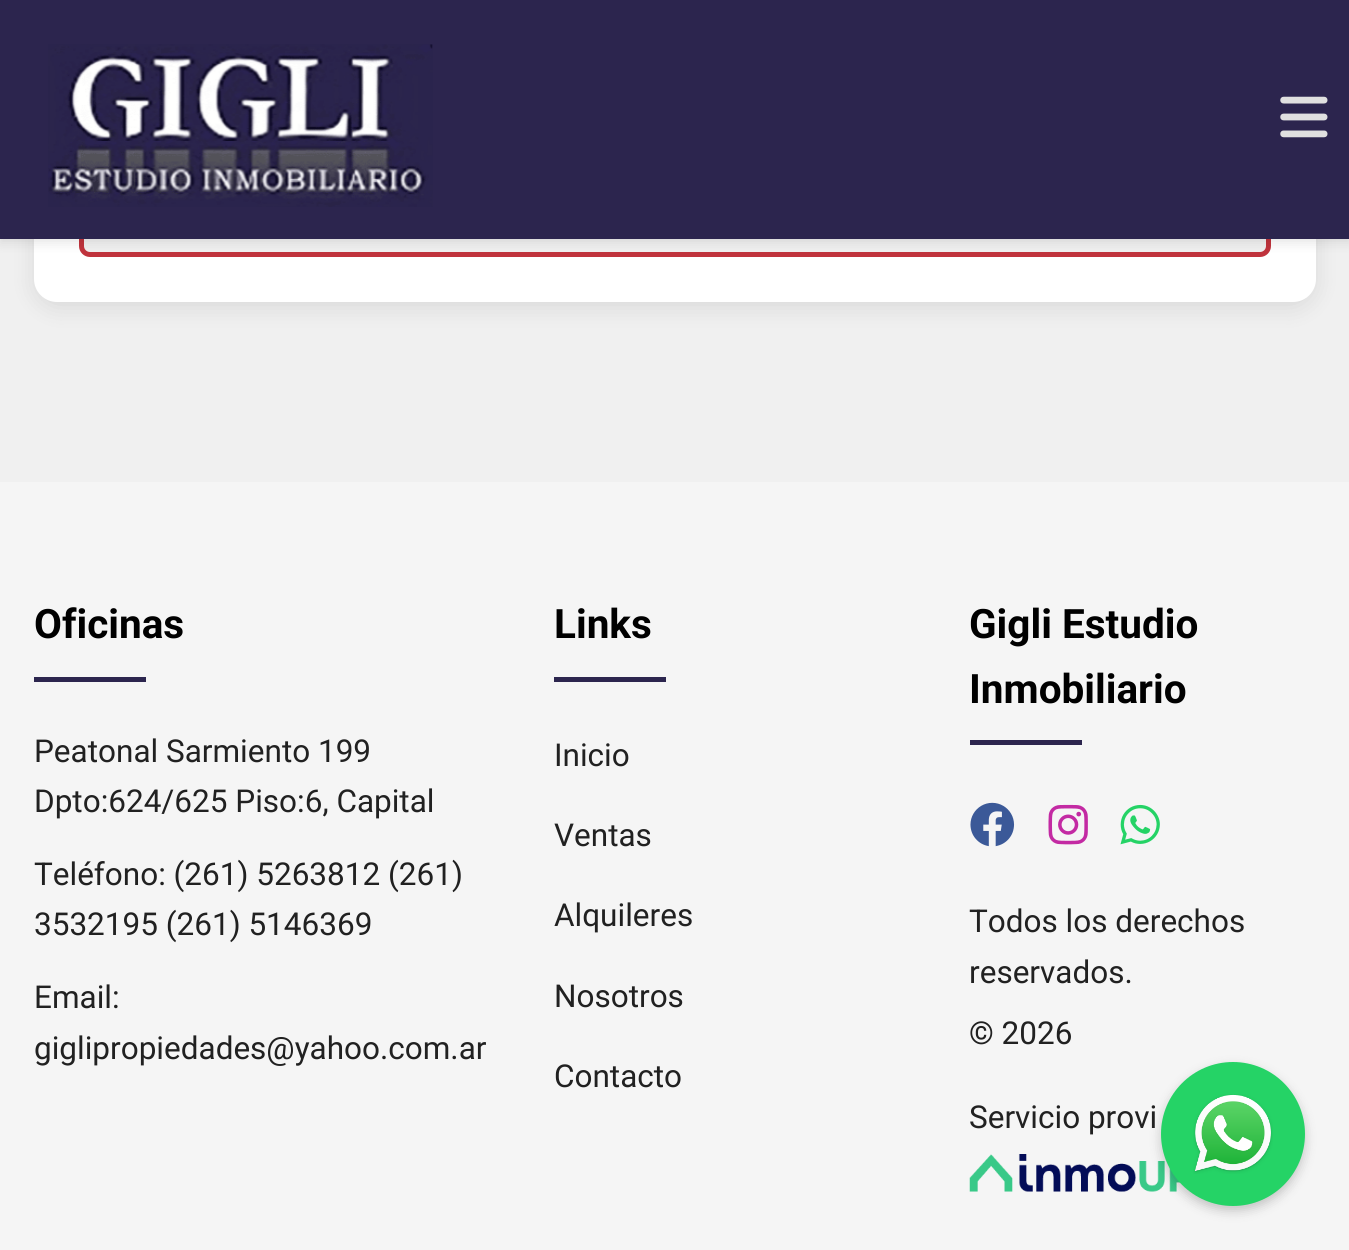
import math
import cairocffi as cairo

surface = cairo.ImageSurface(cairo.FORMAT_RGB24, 1349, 1250)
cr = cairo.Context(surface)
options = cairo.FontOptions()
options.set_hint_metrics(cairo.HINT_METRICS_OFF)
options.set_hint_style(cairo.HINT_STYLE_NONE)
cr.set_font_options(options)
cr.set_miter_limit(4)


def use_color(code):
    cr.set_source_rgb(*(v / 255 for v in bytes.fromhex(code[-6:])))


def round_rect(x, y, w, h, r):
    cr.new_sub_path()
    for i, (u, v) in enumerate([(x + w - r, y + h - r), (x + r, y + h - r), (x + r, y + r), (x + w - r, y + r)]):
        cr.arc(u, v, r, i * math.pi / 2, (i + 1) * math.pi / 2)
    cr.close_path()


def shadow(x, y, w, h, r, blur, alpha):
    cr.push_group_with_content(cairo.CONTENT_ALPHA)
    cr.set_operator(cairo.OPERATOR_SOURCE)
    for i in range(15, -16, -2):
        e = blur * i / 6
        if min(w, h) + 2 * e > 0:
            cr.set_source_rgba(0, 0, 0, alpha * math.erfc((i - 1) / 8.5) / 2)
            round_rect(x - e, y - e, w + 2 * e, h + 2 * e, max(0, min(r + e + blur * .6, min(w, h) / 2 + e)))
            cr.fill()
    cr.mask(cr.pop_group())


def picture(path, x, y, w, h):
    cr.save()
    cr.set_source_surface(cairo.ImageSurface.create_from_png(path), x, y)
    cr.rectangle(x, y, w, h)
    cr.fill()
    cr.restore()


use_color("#f0f0f0")
cr.paint()
use_color("#000000")
shadow(34, -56, 1282, 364, 23, 11, 0.1)
use_color("#ffffff")
round_rect(34, -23, 1282, 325, 23)
cr.fill()
use_color("#f0f0f0")
round_rect(81.5, 137.5, 1187, 117, 8.5)
cr.fill_preserve()
use_color("#c0333c")
cr.set_line_width(5)
cr.stroke()
use_color("#000000")
shadow(0, 5, 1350, 238, 0, 5.5, 0.1)
use_color("#2c254e")
cr.rectangle(0, 0, 1349, 239)
cr.fill()
picture("img1.png", 48, 44, 385, 163)
picture("img2.png", 1280, 96, 48, 42)
use_color("#f5f5f5")
cr.rectangle(0, 482, 1349, 768)
cr.fill()
cr.select_font_face("Roboto", cairo.FONT_SLANT_NORMAL, cairo.FONT_WEIGHT_BOLD)
cr.set_font_size(40.5)
use_color("#000000")
cr.move_to(34, 638)
cr.show_text("Oficinas")
use_color("#2c254e")
cr.rectangle(34, 677, 112, 5)
cr.fill()
cr.select_font_face("Roboto")
cr.set_font_size(31.5)
use_color("#212121")
cr.move_to(34, 762)
cr.show_text("Peatonal Sarmiento 199")
cr.move_to(34, 812)
cr.show_text("Dpto:624/625 Piso:6, Capital")
cr.move_to(34, 885)
cr.show_text("Teléfono: (261) 5263812 (261)")
cr.move_to(34, 935)
cr.show_text("3532195 (261) 5146369")
cr.move_to(34, 1008)
cr.show_text("Email:")
cr.move_to(34, 1059)
cr.show_text("giglipropiedades@yahoo.com.ar")
cr.select_font_face("Roboto", cairo.FONT_SLANT_NORMAL, cairo.FONT_WEIGHT_BOLD)
cr.set_font_size(40.5)
use_color("#000000")
cr.move_to(554, 638)
cr.show_text("Links")
use_color("#2c254e")
cr.rectangle(554, 677, 112, 5)
cr.fill()
cr.select_font_face("Roboto")
cr.set_font_size(31.5)
use_color("#212121")
cr.move_to(554, 766)
cr.show_text("Inicio")
cr.move_to(554, 846)
cr.show_text("Ventas")
cr.move_to(554, 926)
cr.show_text("Alquileres")
cr.move_to(554, 1007)
cr.show_text("Nosotros")
cr.move_to(554, 1087)
cr.show_text("Contacto")
cr.select_font_face("Roboto", cairo.FONT_SLANT_NORMAL, cairo.FONT_WEIGHT_BOLD)
cr.set_font_size(40.5)
use_color("#000000")
cr.move_to(969, 638)
cr.show_text("Gigli Estudio")
cr.move_to(969, 703)
cr.show_text("Inmobiliario")
use_color("#2c254e")
cr.rectangle(970, 740, 112, 5)
cr.fill()
picture("img3.png", 970, 802, 45, 45)
picture("img4.png", 1048, 804, 40, 41)
picture("img5.png", 1120, 804, 40, 41)
cr.select_font_face("Roboto")
cr.set_font_size(31.5)
use_color("#212121")
cr.move_to(969, 932)
cr.show_text("Todos los derechos")
cr.move_to(969, 983)
cr.show_text("reservados.")
cr.move_to(969, 1044)
cr.show_text("© 2026")
cr.move_to(969, 1128)
cr.show_text("Servicio provi")
picture("img6.png", 969, 1154, 212, 38)
use_color("#000000")
shadow(1161, 1067, 144, 144, 72, 5.5, 0.2)
use_color("#25d366")
cr.arc(1233, 1134, 72, 0, 2 * math.pi)
cr.fill()
picture("img7.png", 1193, 1094, 80, 80)
surface.write_to_png("result.png")
